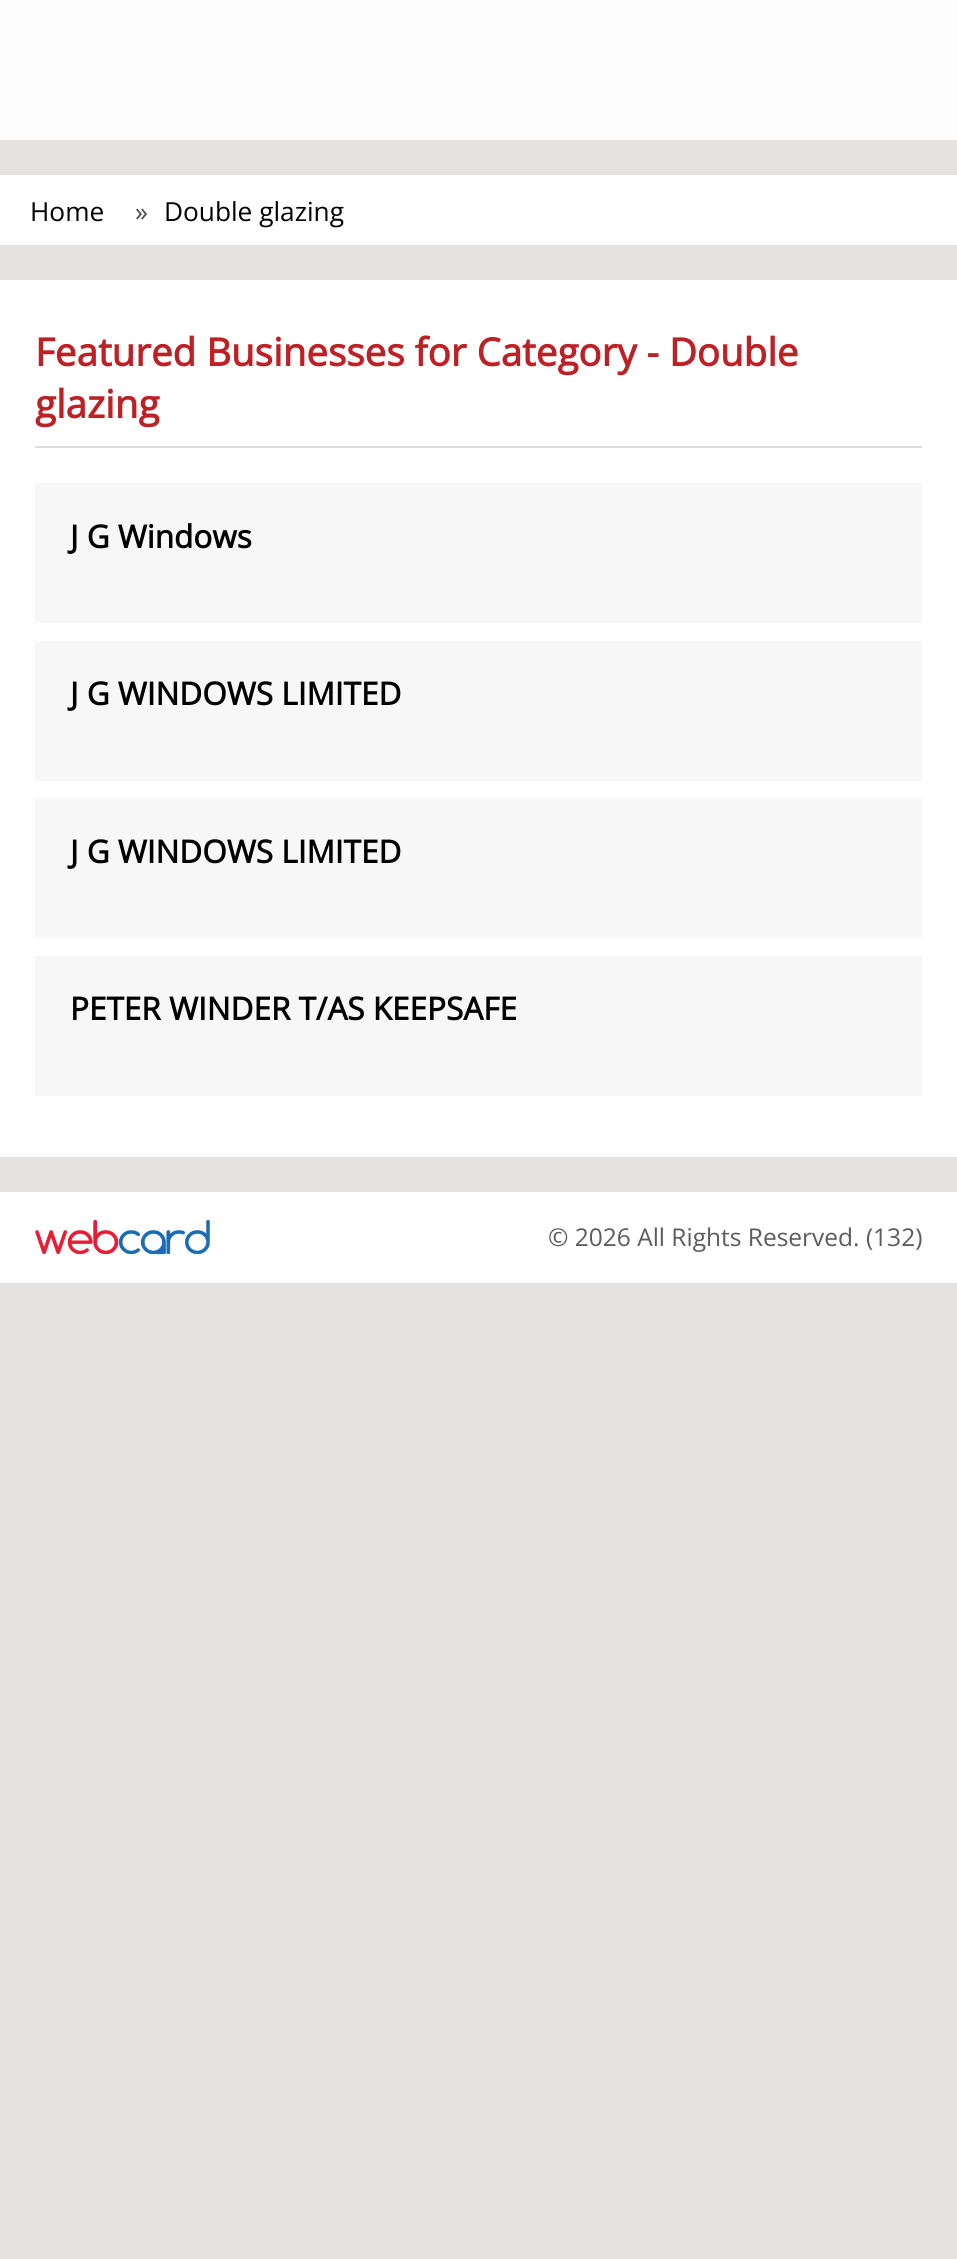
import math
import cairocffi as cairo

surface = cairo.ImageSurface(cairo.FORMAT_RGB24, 957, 2259)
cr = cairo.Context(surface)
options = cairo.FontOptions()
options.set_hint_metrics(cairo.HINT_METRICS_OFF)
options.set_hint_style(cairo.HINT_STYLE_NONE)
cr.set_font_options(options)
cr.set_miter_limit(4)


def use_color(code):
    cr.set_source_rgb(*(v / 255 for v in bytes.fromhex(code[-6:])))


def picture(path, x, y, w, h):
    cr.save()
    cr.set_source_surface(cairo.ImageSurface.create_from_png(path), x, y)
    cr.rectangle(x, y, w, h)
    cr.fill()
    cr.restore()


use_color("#e5e3df")
cr.paint()
use_color("#fdfdfd")
cr.rectangle(0, 0, 957, 140)
cr.fill()
use_color("#ffffff")
cr.rectangle(0, 175, 957, 70)
cr.fill()
cr.select_font_face("Open Sans")
cr.set_font_size(26.25)
use_color("#000000")
cr.move_to(30, 221)
cr.show_text("Home")
use_color("#4e4e4e")
cr.move_to(135, 221)
cr.show_text("»")
use_color("#000000")
cr.move_to(164, 221)
cr.show_text("Double glazing")
use_color("#ffffff")
cr.rectangle(0, 280, 957, 877)
cr.fill()
cr.select_font_face("Open Sans", cairo.FONT_SLANT_NORMAL, cairo.FONT_WEIGHT_BOLD)
cr.set_font_size(38.5)
use_color("#bd2125")
cr.move_to(35, 366)
cr.show_text("Featured Businesses for Category - Double")
cr.move_to(35, 418)
cr.show_text("glazing")
use_color("#dcdcdc")
cr.rectangle(35, 446, 887, 2)
cr.fill()
use_color("#f7f7f7")
cr.rectangle(35, 483, 887, 140)
cr.fill()
cr.set_font_size(31.5)
use_color("#000000")
cr.move_to(70, 548)
cr.show_text("J G Windows")
use_color("#f7f7f7")
cr.rectangle(35, 641, 887, 140)
cr.fill()
use_color("#000000")
cr.move_to(70, 705)
cr.show_text("J G WINDOWS LIMITED")
use_color("#f7f7f7")
cr.rectangle(35, 798, 887, 140)
cr.fill()
use_color("#000000")
cr.move_to(70, 863)
cr.show_text("J G WINDOWS LIMITED")
use_color("#f7f7f7")
cr.rectangle(35, 956, 887, 140)
cr.fill()
use_color("#000000")
cr.move_to(70, 1020)
cr.show_text("PETER WINDER T/AS KEEPSAFE")
use_color("#ffffff")
cr.rectangle(0, 1192, 957, 91)
cr.fill()
picture("img1.png", 35, 1219, 175, 36)
cr.select_font_face("Open Sans")
cr.set_font_size(24.5)
use_color("#5c5c5c")
cr.move_to(548, 1246)
cr.show_text("© 2026 All Rights Reserved. (132)")
surface.write_to_png("result.png")
